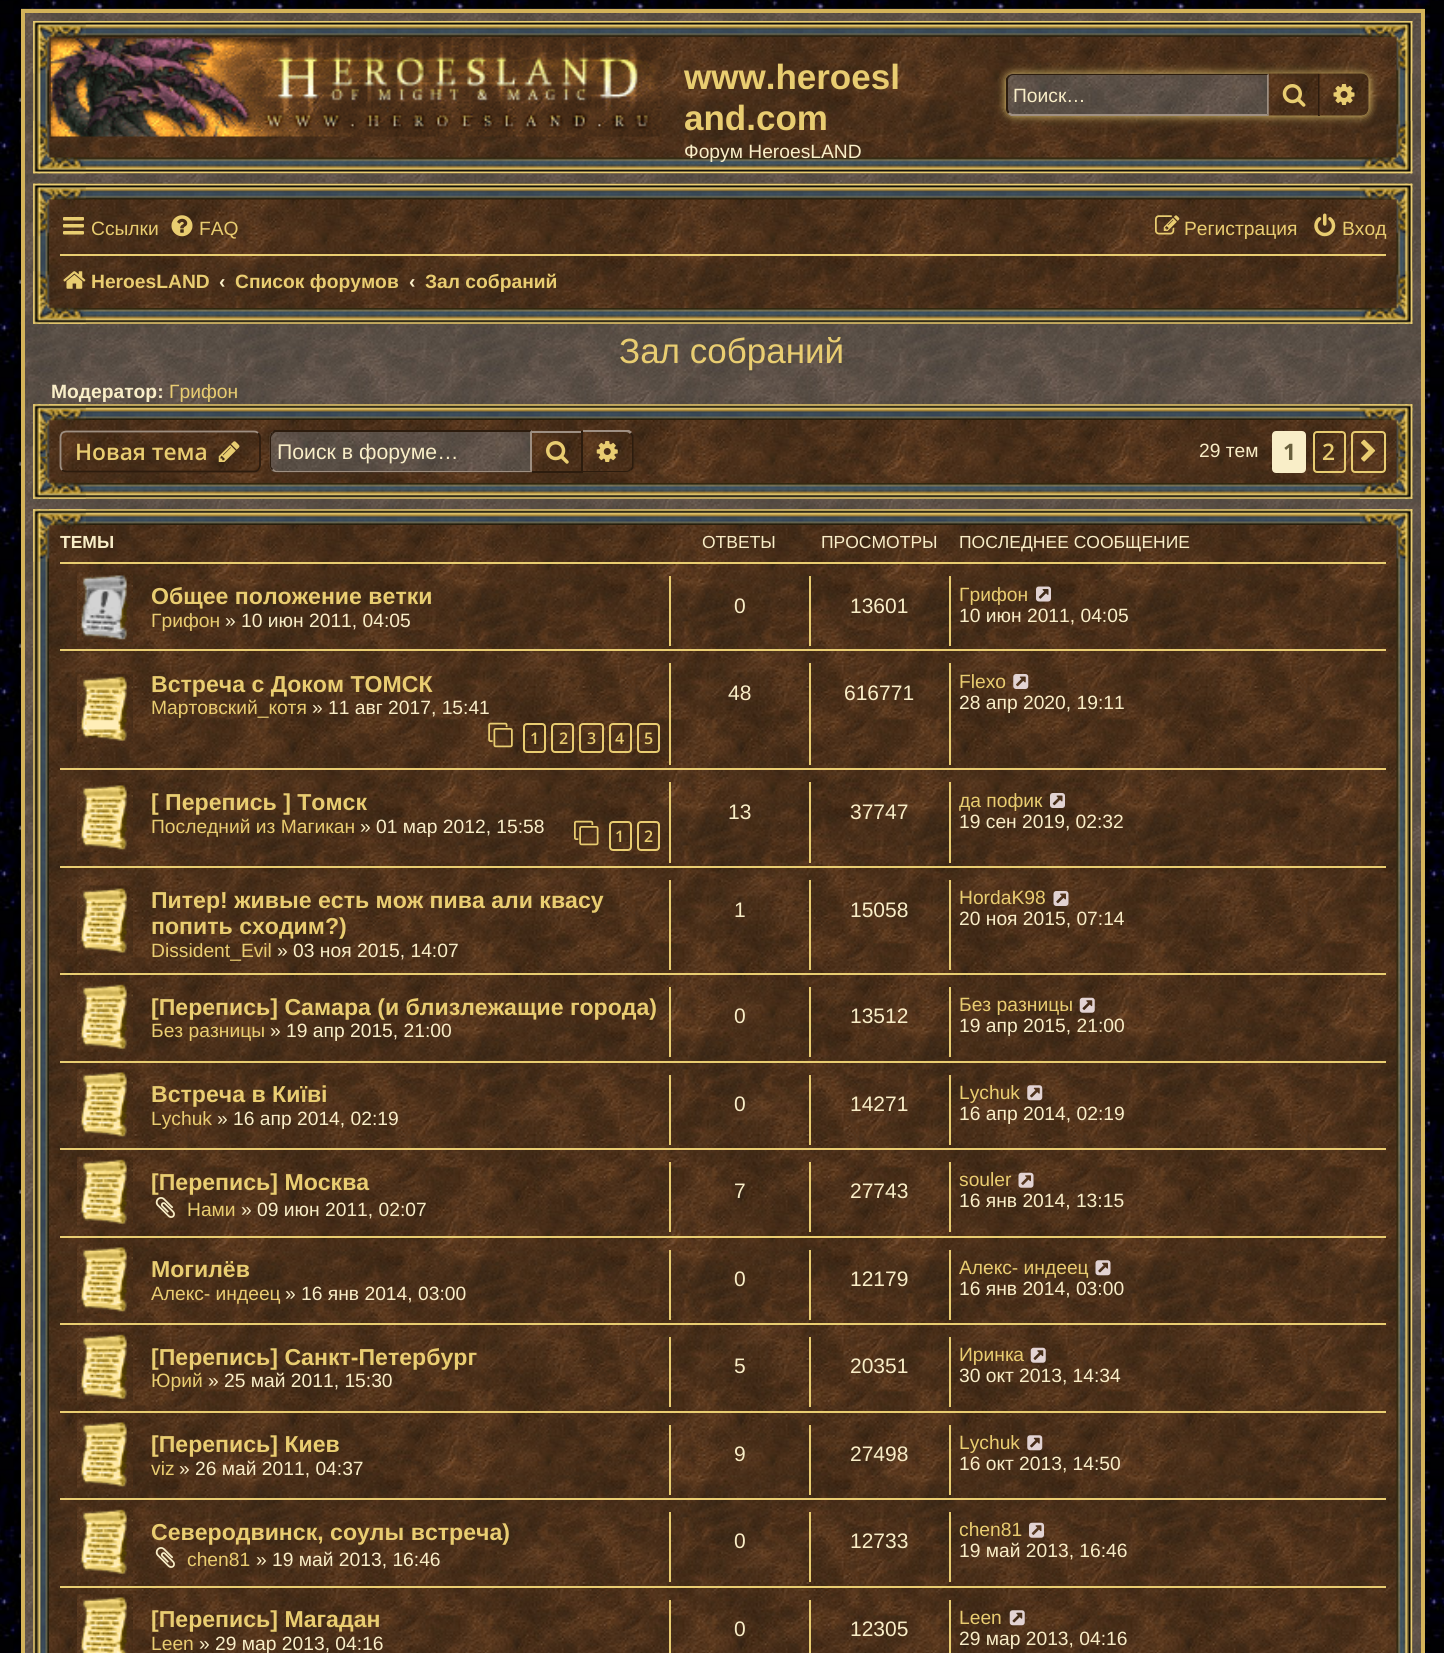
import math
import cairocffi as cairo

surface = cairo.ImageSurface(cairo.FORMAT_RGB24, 1444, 1653)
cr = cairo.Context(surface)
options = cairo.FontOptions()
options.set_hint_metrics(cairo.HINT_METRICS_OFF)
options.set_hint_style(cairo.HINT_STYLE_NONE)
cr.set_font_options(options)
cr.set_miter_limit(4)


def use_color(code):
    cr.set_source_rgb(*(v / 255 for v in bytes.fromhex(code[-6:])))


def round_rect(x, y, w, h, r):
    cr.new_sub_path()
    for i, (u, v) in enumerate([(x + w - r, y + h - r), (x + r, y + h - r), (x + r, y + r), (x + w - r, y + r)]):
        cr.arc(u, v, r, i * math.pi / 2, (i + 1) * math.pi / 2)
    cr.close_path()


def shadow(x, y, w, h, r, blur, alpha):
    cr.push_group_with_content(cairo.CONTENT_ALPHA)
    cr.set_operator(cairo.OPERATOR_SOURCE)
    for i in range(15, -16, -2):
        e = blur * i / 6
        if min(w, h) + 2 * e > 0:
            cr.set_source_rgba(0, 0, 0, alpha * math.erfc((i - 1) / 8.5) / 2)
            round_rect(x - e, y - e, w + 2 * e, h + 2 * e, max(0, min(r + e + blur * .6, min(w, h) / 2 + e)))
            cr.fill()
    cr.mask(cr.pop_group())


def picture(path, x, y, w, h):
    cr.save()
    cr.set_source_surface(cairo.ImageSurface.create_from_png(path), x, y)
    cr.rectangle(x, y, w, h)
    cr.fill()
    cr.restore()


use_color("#ffffff")
cr.paint()
picture("img1.png", 0, 0, 1444, 1653)
picture("img2.png", 21, 8, 1404, 1645)
cr.rectangle(23, 11, 1400, 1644)
use_color("#d4b35a")
cr.set_line_width(4)
cr.stroke()
picture("img3.png", 33, 21, 1380, 153)
picture("img4.png", 50, 38, 612, 99)
cr.select_font_face("Liberation Sans", cairo.FONT_SLANT_NORMAL, cairo.FONT_WEIGHT_BOLD)
cr.set_font_size(35)
use_color("#e9cd71")
cr.move_to(684, 89)
cr.show_text("www.heroesl")
cr.move_to(684, 130)
cr.show_text("and.com")
cr.select_font_face("Liberation Sans")
cr.set_font_size(19.25)
use_color("#f9eec8")
cr.move_to(684, 158)
cr.show_text("Форум HeroesLAND")
use_color("#e9cd71")
shadow(1006, 74, 363, 42, 7, 4.5, 1)
picture("img5.png", 1006, 73, 263, 43)
use_color("#2c1c0e")
cr.new_path()
cr.move_to(1013, 74)
cr.curve_to(1011, 74, 1010, 75, 1008, 76)
cr.line_to(1009, 77)
cr.curve_to(1010, 76, 1012, 75, 1013, 75)
cr.line_to(1267, 75)
cr.line_to(1268, 74)
cr.close_path()
cr.fill()
use_color("#9e8f82")
cr.new_path()
cr.move_to(1269, 74)
cr.line_to(1267, 75)
cr.line_to(1267, 114)
cr.line_to(1269, 116)
cr.close_path()
cr.fill()
cr.new_path()
cr.move_to(1269, 116)
cr.line_to(1011, 116)
cr.line_to(1008, 114)
cr.line_to(1009, 112)
cr.curve_to(1010, 113, 1012, 114, 1013, 114)
cr.line_to(1267, 114)
cr.close_path()
cr.fill()
use_color("#2c1c0e")
cr.new_path()
cr.move_to(1006, 78.5)
cr.curve_to(1006.5, 77.5, 1007.5, 76.5, 1008.5, 75.5)
cr.line_to(1009.5, 76.5)
cr.curve_to(1008.5, 77.5, 1008, 79, 1008, 80)
cr.line_to(1008, 108)
cr.curve_to(1008, 109.5, 1008.5, 111, 1009.5, 112.5)
cr.line_to(1008, 113.5)
cr.curve_to(1007, 112.5, 1006.5, 111.5, 1006, 110)
cr.close_path()
cr.fill()
use_color("#f9eec8")
cr.move_to(1013, 102)
cr.show_text("Поиск…")
picture("img6.png", 1268, 73, 52, 43)
use_color("#2c1c0e")
cr.rectangle(1318, 74, 2, 42)
cr.fill()
picture("img7.png", 1282, 84, 24, 23)
picture("img8.png", 1319, 73, 50, 43)
picture("img9.png", 1333, 84, 22, 21)
picture("img10.png", 33, 183, 1380, 141)
picture("img11.png", 63, 217, 21, 18)
use_color("#e9cd71")
cr.move_to(91, 235)
cr.show_text("Ссылки")
picture("img12.png", 171, 215, 22, 22)
cr.move_to(199, 235)
cr.show_text("FAQ")
picture("img13.png", 1155, 215, 25, 20)
cr.move_to(1184, 235)
cr.show_text("Регистрация")
picture("img14.png", 1314, 213, 22, 24)
cr.move_to(1342, 235)
cr.show_text("Вход")
cr.rectangle(60, 254, 1326, 2)
cr.fill()
picture("img15.png", 63, 271, 23, 18)
cr.select_font_face("Liberation Sans", cairo.FONT_SLANT_NORMAL, cairo.FONT_WEIGHT_BOLD)
cr.move_to(91, 288)
cr.show_text("HeroesLAND")
use_color("#f9eec8")
cr.move_to(219, 288)
cr.show_text("‹")
use_color("#e9cd71")
cr.move_to(235, 288)
cr.show_text("Список форумов")
use_color("#f9eec8")
cr.move_to(409, 288)
cr.show_text("‹")
use_color("#e9cd71")
cr.move_to(425, 288)
cr.show_text("Зал собраний")
cr.select_font_face("Liberation Sans")
cr.set_font_size(35)
cr.move_to(619, 363)
cr.show_text("Зал собраний")
cr.select_font_face("Liberation Sans", cairo.FONT_SLANT_NORMAL, cairo.FONT_WEIGHT_BOLD)
cr.set_font_size(19.25)
use_color("#f9eec8")
cr.move_to(51, 398)
cr.show_text("Модератор:")
cr.select_font_face("Liberation Sans")
use_color("#e9cd71")
cr.move_to(169, 398)
cr.show_text("Грифон")
picture("img16.png", 33, 404, 1380, 95)
picture("img17.png", 59, 430, 202, 43)
cr.new_path()
cr.move_to(258, 433)
cr.curve_to(259, 434.5, 260, 436, 260, 437.5)
cr.line_to(260, 465.5)
cr.curve_to(260, 467, 259, 468.5, 258, 470)
cr.curve_to(257, 471, 255.5, 471.5, 254, 471.5)
cr.line_to(66.5, 471.5)
cr.curve_to(65, 471.5, 63.5, 471, 62, 470)
use_color("#2c1c0e")
cr.set_line_width(1.8)
cr.stroke()
cr.new_path()
cr.move_to(62, 470)
cr.curve_to(61, 468.5, 60.5, 467, 60.5, 465.5)
cr.line_to(60.5, 437.5)
cr.curve_to(60.5, 436, 61, 434.5, 62, 433)
cr.curve_to(63.5, 432, 65, 431.5, 66.5, 431.5)
cr.line_to(254, 431.5)
cr.curve_to(255.5, 431.5, 257, 432, 258, 433)
use_color("#9e8f82")
cr.stroke()
cr.select_font_face("Open Sans SemiBold")
cr.set_font_size(22.75)
use_color("#e9cd71")
cr.move_to(75, 460)
cr.show_text("Новая тема")
picture("img18.png", 218, 441, 22, 21)
picture("img19.png", 269, 430, 263, 43)
use_color("#2c1c0e")
cr.new_path()
cr.move_to(276, 432)
cr.curve_to(275, 432, 274, 433, 273, 434)
cr.line_to(272, 433)
cr.line_to(274, 430)
cr.line_to(532, 430)
cr.line_to(530, 432)
cr.close_path()
cr.fill()
use_color("#9e8f82")
cr.new_path()
cr.move_to(532, 430)
cr.line_to(530, 432)
cr.line_to(530, 470)
cr.line_to(532, 472)
cr.close_path()
cr.fill()
cr.new_path()
cr.move_to(532, 472)
cr.line_to(275, 472)
cr.line_to(272, 470)
cr.line_to(273, 469)
cr.line_to(276, 471)
cr.line_to(530, 471)
cr.line_to(530, 470)
cr.close_path()
cr.fill()
use_color("#2c1c0e")
cr.new_path()
cr.move_to(272, 470)
cr.curve_to(271, 469, 270, 467.5, 270, 466)
cr.line_to(270, 438)
cr.curve_to(270, 436, 270.5, 434, 271.5, 432.5)
cr.line_to(273, 434)
cr.curve_to(272, 435, 271, 436.5, 271, 438)
cr.line_to(271, 466)
cr.curve_to(271, 467, 272, 468, 273, 469)
cr.close_path()
cr.fill()
cr.select_font_face("Liberation Sans")
cr.set_font_size(21.25)
use_color("#f9eec8")
cr.move_to(277, 459)
cr.show_text("Поиск в форуме…")
picture("img20.png", 532, 430, 51, 41)
use_color("#9e8f82")
cr.rectangle(532, 431, 51, 2)
cr.fill()
use_color("#2c1c0e")
cr.rectangle(581, 431, 2, 42)
cr.fill()
cr.rectangle(532, 471, 51, 2)
cr.fill()
picture("img21.png", 546, 441, 23, 23)
picture("img22.png", 583, 431, 50, 42)
use_color("#9e8f82")
cr.new_path()
cr.move_to(583, 432)
cr.line_to(583, 430)
cr.line_to(629, 430)
cr.line_to(632, 432)
cr.line_to(630, 434)
cr.curve_to(629, 433, 628, 432, 626, 432)
cr.close_path()
cr.fill()
use_color("#2c1c0e")
cr.new_path()
cr.move_to(630, 469)
cr.curve_to(631.5, 468, 632, 467, 632, 466)
cr.line_to(632, 438)
cr.curve_to(632, 436.5, 631, 435, 630, 434)
cr.line_to(631.5, 432.5)
cr.line_to(633.5, 435.5)
cr.line_to(633.5, 468)
cr.line_to(631.5, 470.5)
cr.close_path()
cr.fill()
cr.new_path()
cr.move_to(631, 470)
cr.line_to(630, 469)
cr.curve_to(629, 470, 628, 471, 626, 471)
cr.line_to(583, 471)
cr.line_to(583, 472)
cr.line_to(626, 472)
cr.curve_to(628, 472, 630, 471, 631, 470)
cr.close_path()
cr.fill()
picture("img23.png", 596, 441, 22, 21)
cr.set_font_size(19.25)
use_color("#f9eec8")
cr.move_to(1199, 457)
cr.show_text("29 тем")
round_rect(1273, 432, 32, 40, 3)
cr.fill_preserve()
cr.set_line_width(2)
cr.stroke()
cr.select_font_face("Open Sans", cairo.FONT_SLANT_NORMAL, cairo.FONT_WEIGHT_BOLD)
cr.set_font_size(22.75)
use_color("#685f3c")
cr.move_to(1283, 460)
cr.show_text("1")
round_rect(1314, 432, 31, 40, 3)
use_color("#e9cd71")
cr.stroke()
cr.select_font_face("Open Sans SemiBold")
cr.move_to(1322, 460)
cr.show_text("2")
round_rect(1352, 432, 33, 40, 3)
cr.stroke()
picture("img24.png", 1361, 439, 15, 23)
picture("img25.png", 33, 509, 1380, 1144)
cr.select_font_face("Liberation Sans", cairo.FONT_SLANT_NORMAL, cairo.FONT_WEIGHT_BOLD)
cr.set_font_size(17.5)
use_color("#f9eec8")
cr.move_to(60, 548)
cr.show_text("ТЕМЫ")
cr.select_font_face("Liberation Sans")
cr.move_to(702, 548)
cr.show_text("ОТВЕТЫ")
cr.move_to(821, 548)
cr.show_text("ПРОСМОТРЫ")
cr.move_to(959, 548)
cr.show_text("ПОСЛЕДНЕЕ СООБЩЕНИЕ")
use_color("#e9cd71")
cr.rectangle(60, 562, 1326, 2)
cr.fill()
picture("img26.png", 77, 572, 56, 71)
cr.select_font_face("Liberation Sans", cairo.FONT_SLANT_NORMAL, cairo.FONT_WEIGHT_BOLD)
cr.set_font_size(23.1)
cr.move_to(151, 604)
cr.show_text("Общее положение ветки")
cr.select_font_face("Liberation Sans")
cr.set_font_size(19.25)
cr.move_to(151, 627)
cr.show_text("Грифон")
use_color("#f9eec8")
cr.move_to(225, 627)
cr.show_text("» 10 июн 2011, 04:05")
use_color("#e9cd71")
cr.rectangle(669, 576, 2, 70)
cr.fill()
cr.set_font_size(21)
use_color("#f9eec8")
cr.move_to(734, 613)
cr.show_text("0")
use_color("#e9cd71")
cr.rectangle(809, 576, 2, 70)
cr.fill()
use_color("#f9eec8")
cr.move_to(850, 613)
cr.show_text("13601")
use_color("#e9cd71")
cr.rectangle(949, 576, 2, 70)
cr.fill()
cr.set_font_size(19.25)
cr.move_to(959, 601)
cr.show_text("Грифон")
picture("img27.png", 1036, 586, 15, 16)
use_color("#f9eec8")
cr.move_to(959, 622)
cr.show_text("10 июн 2011, 04:05")
use_color("#e9cd71")
cr.rectangle(60, 649, 1326, 2)
cr.fill()
picture("img28.png", 77, 673, 56, 71)
cr.select_font_face("Liberation Sans", cairo.FONT_SLANT_NORMAL, cairo.FONT_WEIGHT_BOLD)
cr.set_font_size(23.1)
cr.move_to(151, 692)
cr.show_text("Встреча с Доком ТОМСК")
cr.select_font_face("Liberation Sans")
cr.set_font_size(19.25)
cr.move_to(151, 714)
cr.show_text("Мартовский_котя")
use_color("#f9eec8")
cr.move_to(312, 714)
cr.show_text("» 11 авг 2017, 15:41")
picture("img29.png", 488, 722, 25, 26)
round_rect(524, 724, 21, 28, 3)
use_color("#e9cd71")
cr.stroke()
cr.select_font_face("Open Sans SemiBold")
cr.set_font_size(16)
cr.move_to(530, 744)
cr.show_text("1")
round_rect(552, 724, 21, 28, 3)
cr.stroke()
cr.move_to(559, 744)
cr.show_text("2")
round_rect(580, 724, 23, 28, 3)
cr.stroke()
cr.move_to(587, 744)
cr.show_text("3")
round_rect(610, 724, 21, 28, 3)
cr.stroke()
cr.move_to(615, 744)
cr.show_text("4")
round_rect(638, 724, 21, 28, 3)
cr.stroke()
cr.move_to(644, 744)
cr.show_text("5")
cr.rectangle(669, 663, 2, 102)
cr.fill()
cr.select_font_face("Liberation Sans")
cr.set_font_size(21)
use_color("#f9eec8")
cr.move_to(728, 700)
cr.show_text("48")
use_color("#e9cd71")
cr.rectangle(809, 663, 2, 102)
cr.fill()
use_color("#f9eec8")
cr.move_to(844, 700)
cr.show_text("616771")
use_color("#e9cd71")
cr.rectangle(949, 663, 2, 102)
cr.fill()
cr.set_font_size(19.25)
cr.move_to(959, 688)
cr.show_text("Flexo")
picture("img30.png", 1013, 674, 16, 15)
use_color("#f9eec8")
cr.move_to(959, 709)
cr.show_text("28 апр 2020, 19:11")
use_color("#e9cd71")
cr.rectangle(60, 768, 1326, 2)
cr.fill()
picture("img31.png", 77, 782, 56, 71)
cr.select_font_face("Liberation Sans", cairo.FONT_SLANT_NORMAL, cairo.FONT_WEIGHT_BOLD)
cr.set_font_size(23.1)
cr.move_to(151, 810)
cr.show_text("[ Перепись ] Томск")
cr.select_font_face("Liberation Sans")
cr.set_font_size(19.25)
cr.move_to(151, 833)
cr.show_text("Последний из Магикан")
use_color("#f9eec8")
cr.move_to(360, 833)
cr.show_text("» 01 мар 2012, 15:58")
picture("img32.png", 574, 820, 25, 26)
round_rect(610, 822, 21, 28, 3)
use_color("#e9cd71")
cr.stroke()
cr.select_font_face("Open Sans SemiBold")
cr.set_font_size(16)
cr.move_to(615, 842)
cr.show_text("1")
round_rect(638, 822, 21, 28, 3)
cr.stroke()
cr.move_to(644, 842)
cr.show_text("2")
cr.rectangle(669, 782, 2, 81)
cr.fill()
cr.select_font_face("Liberation Sans")
cr.set_font_size(21)
use_color("#f9eec8")
cr.move_to(728, 819)
cr.show_text("13")
use_color("#e9cd71")
cr.rectangle(809, 782, 2, 81)
cr.fill()
use_color("#f9eec8")
cr.move_to(850, 819)
cr.show_text("37747")
use_color("#e9cd71")
cr.rectangle(949, 782, 2, 81)
cr.fill()
cr.set_font_size(19.25)
cr.move_to(959, 807)
cr.show_text("да пофик")
picture("img33.png", 1050, 793, 15, 15)
use_color("#f9eec8")
cr.move_to(959, 828)
cr.show_text("19 сен 2019, 02:32")
use_color("#e9cd71")
cr.rectangle(60, 866, 1326, 2)
cr.fill()
picture("img34.png", 77, 885, 56, 71)
cr.select_font_face("Liberation Sans", cairo.FONT_SLANT_NORMAL, cairo.FONT_WEIGHT_BOLD)
cr.set_font_size(23.1)
cr.move_to(151, 908)
cr.show_text("Питер! живые есть мож пива али квасу")
cr.move_to(151, 934)
cr.show_text("попить сходим?)")
cr.select_font_face("Liberation Sans")
cr.set_font_size(19.25)
cr.move_to(151, 957)
cr.show_text("Dissident_Evil")
use_color("#f9eec8")
cr.move_to(277, 957)
cr.show_text("» 03 ноя 2015, 14:07")
use_color("#e9cd71")
cr.rectangle(669, 880, 2, 90)
cr.fill()
cr.set_font_size(21)
use_color("#f9eec8")
cr.move_to(734, 917)
cr.show_text("1")
use_color("#e9cd71")
cr.rectangle(809, 880, 2, 90)
cr.fill()
use_color("#f9eec8")
cr.move_to(850, 917)
cr.show_text("15058")
use_color("#e9cd71")
cr.rectangle(949, 880, 2, 90)
cr.fill()
cr.set_font_size(19.25)
cr.move_to(959, 904)
cr.show_text("HordaK98")
picture("img35.png", 1053, 891, 16, 15)
use_color("#f9eec8")
cr.move_to(959, 925)
cr.show_text("20 ноя 2015, 07:14")
use_color("#e9cd71")
cr.rectangle(60, 973, 1326, 2)
cr.fill()
picture("img36.png", 77, 981, 56, 71)
cr.select_font_face("Liberation Sans", cairo.FONT_SLANT_NORMAL, cairo.FONT_WEIGHT_BOLD)
cr.set_font_size(23.1)
cr.move_to(151, 1015)
cr.show_text("[Перепись] Самара (и близлежащие города)")
cr.select_font_face("Liberation Sans")
cr.set_font_size(19.25)
cr.move_to(151, 1037)
cr.show_text("Без разницы")
use_color("#f9eec8")
cr.move_to(270, 1037)
cr.show_text("» 19 апр 2015, 21:00")
use_color("#e9cd71")
cr.rectangle(669, 987, 2, 70)
cr.fill()
cr.set_font_size(21)
use_color("#f9eec8")
cr.move_to(734, 1023)
cr.show_text("0")
use_color("#e9cd71")
cr.rectangle(809, 987, 2, 70)
cr.fill()
use_color("#f9eec8")
cr.move_to(850, 1023)
cr.show_text("13512")
use_color("#e9cd71")
cr.rectangle(949, 987, 2, 70)
cr.fill()
cr.set_font_size(19.25)
cr.move_to(959, 1011)
cr.show_text("Без разницы")
picture("img37.png", 1079, 997, 16, 16)
use_color("#f9eec8")
cr.move_to(959, 1032)
cr.show_text("19 апр 2015, 21:00")
use_color("#e9cd71")
cr.rectangle(60, 1061, 1326, 2)
cr.fill()
picture("img38.png", 77, 1069, 56, 71)
cr.select_font_face("Liberation Sans", cairo.FONT_SLANT_NORMAL, cairo.FONT_WEIGHT_BOLD)
cr.set_font_size(23.1)
cr.move_to(151, 1102)
cr.show_text("Встреча в Київі")
cr.select_font_face("Liberation Sans")
cr.set_font_size(19.25)
cr.move_to(151, 1125)
cr.show_text("Lychuk")
use_color("#f9eec8")
cr.move_to(217, 1125)
cr.show_text("» 16 апр 2014, 02:19")
use_color("#e9cd71")
cr.rectangle(669, 1075, 2, 70)
cr.fill()
cr.set_font_size(21)
use_color("#f9eec8")
cr.move_to(734, 1111)
cr.show_text("0")
use_color("#e9cd71")
cr.rectangle(809, 1075, 2, 70)
cr.fill()
use_color("#f9eec8")
cr.move_to(850, 1111)
cr.show_text("14271")
use_color("#e9cd71")
cr.rectangle(949, 1075, 2, 70)
cr.fill()
cr.set_font_size(19.25)
cr.move_to(959, 1099)
cr.show_text("Lychuk")
picture("img39.png", 1027, 1085, 16, 16)
use_color("#f9eec8")
cr.move_to(959, 1120)
cr.show_text("16 апр 2014, 02:19")
use_color("#e9cd71")
cr.rectangle(60, 1148, 1326, 2)
cr.fill()
picture("img40.png", 77, 1156, 56, 71)
cr.select_font_face("Liberation Sans", cairo.FONT_SLANT_NORMAL, cairo.FONT_WEIGHT_BOLD)
cr.set_font_size(23.1)
cr.move_to(151, 1190)
cr.show_text("[Перепись] Москва")
picture("img41.png", 155, 1197, 20, 21)
cr.select_font_face("Liberation Sans")
cr.set_font_size(19.25)
cr.move_to(187, 1216)
cr.show_text("Нами")
use_color("#f9eec8")
cr.move_to(241, 1216)
cr.show_text("» 09 июн 2011, 02:07")
use_color("#e9cd71")
cr.rectangle(669, 1162, 2, 70)
cr.fill()
cr.set_font_size(21)
use_color("#f9eec8")
cr.move_to(734, 1198)
cr.show_text("7")
use_color("#e9cd71")
cr.rectangle(809, 1162, 2, 70)
cr.fill()
use_color("#f9eec8")
cr.move_to(850, 1198)
cr.show_text("27743")
use_color("#e9cd71")
cr.rectangle(949, 1162, 2, 70)
cr.fill()
cr.set_font_size(19.25)
cr.move_to(959, 1186)
cr.show_text("souler")
picture("img42.png", 1018, 1172, 16, 16)
use_color("#f9eec8")
cr.move_to(959, 1207)
cr.show_text("16 янв 2014, 13:15")
use_color("#e9cd71")
cr.rectangle(60, 1236, 1326, 2)
cr.fill()
picture("img43.png", 77, 1244, 56, 71)
cr.select_font_face("Liberation Sans", cairo.FONT_SLANT_NORMAL, cairo.FONT_WEIGHT_BOLD)
cr.set_font_size(23.1)
cr.move_to(151, 1277)
cr.show_text("Могилёв")
cr.select_font_face("Liberation Sans")
cr.set_font_size(19.25)
cr.move_to(151, 1300)
cr.show_text("Алекс- индеец")
use_color("#f9eec8")
cr.move_to(285, 1300)
cr.show_text("» 16 янв 2014, 03:00")
use_color("#e9cd71")
cr.rectangle(669, 1250, 2, 70)
cr.fill()
cr.set_font_size(21)
use_color("#f9eec8")
cr.move_to(734, 1286)
cr.show_text("0")
use_color("#e9cd71")
cr.rectangle(809, 1250, 2, 70)
cr.fill()
use_color("#f9eec8")
cr.move_to(850, 1286)
cr.show_text("12179")
use_color("#e9cd71")
cr.rectangle(949, 1250, 2, 70)
cr.fill()
cr.set_font_size(19.25)
cr.move_to(959, 1274)
cr.show_text("Алекс- индеец")
picture("img44.png", 1095, 1260, 16, 16)
use_color("#f9eec8")
cr.move_to(959, 1295)
cr.show_text("16 янв 2014, 03:00")
use_color("#e9cd71")
cr.rectangle(60, 1323, 1326, 2)
cr.fill()
picture("img45.png", 77, 1331, 56, 71)
cr.select_font_face("Liberation Sans", cairo.FONT_SLANT_NORMAL, cairo.FONT_WEIGHT_BOLD)
cr.set_font_size(23.1)
cr.move_to(151, 1365)
cr.show_text("[Перепись] Санкт-Петербург")
cr.select_font_face("Liberation Sans")
cr.set_font_size(19.25)
cr.move_to(151, 1387)
cr.show_text("Юрий")
use_color("#f9eec8")
cr.move_to(208, 1387)
cr.show_text("» 25 май 2011, 15:30")
use_color("#e9cd71")
cr.rectangle(669, 1337, 2, 70)
cr.fill()
cr.set_font_size(21)
use_color("#f9eec8")
cr.move_to(734, 1373)
cr.show_text("5")
use_color("#e9cd71")
cr.rectangle(809, 1337, 2, 70)
cr.fill()
use_color("#f9eec8")
cr.move_to(850, 1373)
cr.show_text("20351")
use_color("#e9cd71")
cr.rectangle(949, 1337, 2, 70)
cr.fill()
cr.set_font_size(19.25)
cr.move_to(959, 1361)
cr.show_text("Иринка")
picture("img46.png", 1030, 1347, 16, 16)
use_color("#f9eec8")
cr.move_to(959, 1382)
cr.show_text("30 окт 2013, 14:34")
use_color("#e9cd71")
cr.rectangle(60, 1411, 1326, 2)
cr.fill()
picture("img47.png", 77, 1419, 56, 71)
cr.select_font_face("Liberation Sans", cairo.FONT_SLANT_NORMAL, cairo.FONT_WEIGHT_BOLD)
cr.set_font_size(23.1)
cr.move_to(151, 1452)
cr.show_text("[Перепись] Киев")
cr.select_font_face("Liberation Sans")
cr.set_font_size(19.25)
cr.move_to(151, 1475)
cr.show_text("viz")
use_color("#f9eec8")
cr.move_to(179, 1475)
cr.show_text("» 26 май 2011, 04:37")
use_color("#e9cd71")
cr.rectangle(669, 1425, 2, 70)
cr.fill()
cr.set_font_size(21)
use_color("#f9eec8")
cr.move_to(734, 1461)
cr.show_text("9")
use_color("#e9cd71")
cr.rectangle(809, 1425, 2, 70)
cr.fill()
use_color("#f9eec8")
cr.move_to(850, 1461)
cr.show_text("27498")
use_color("#e9cd71")
cr.rectangle(949, 1425, 2, 70)
cr.fill()
cr.set_font_size(19.25)
cr.move_to(959, 1449)
cr.show_text("Lychuk")
picture("img48.png", 1027, 1435, 16, 16)
use_color("#f9eec8")
cr.move_to(959, 1470)
cr.show_text("16 окт 2013, 14:50")
use_color("#e9cd71")
cr.rectangle(60, 1498, 1326, 2)
cr.fill()
picture("img49.png", 77, 1506, 56, 71)
cr.select_font_face("Liberation Sans", cairo.FONT_SLANT_NORMAL, cairo.FONT_WEIGHT_BOLD)
cr.set_font_size(23.1)
cr.move_to(151, 1540)
cr.show_text("Северодвинск, соулы встреча)")
picture("img50.png", 155, 1547, 20, 21)
cr.select_font_face("Liberation Sans")
cr.set_font_size(19.25)
cr.move_to(187, 1566)
cr.show_text("chen81")
use_color("#f9eec8")
cr.move_to(256, 1566)
cr.show_text("» 19 май 2013, 16:46")
use_color("#e9cd71")
cr.rectangle(669, 1512, 2, 70)
cr.fill()
cr.set_font_size(21)
use_color("#f9eec8")
cr.move_to(734, 1548)
cr.show_text("0")
use_color("#e9cd71")
cr.rectangle(809, 1512, 2, 70)
cr.fill()
use_color("#f9eec8")
cr.move_to(850, 1548)
cr.show_text("12733")
use_color("#e9cd71")
cr.rectangle(949, 1512, 2, 70)
cr.fill()
cr.set_font_size(19.25)
cr.move_to(959, 1536)
cr.show_text("chen81")
picture("img51.png", 1029, 1522, 15, 16)
use_color("#f9eec8")
cr.move_to(959, 1557)
cr.show_text("19 май 2013, 16:46")
use_color("#e9cd71")
cr.rectangle(60, 1586, 1326, 2)
cr.fill()
picture("img52.png", 77, 1594, 56, 59)
cr.select_font_face("Liberation Sans", cairo.FONT_SLANT_NORMAL, cairo.FONT_WEIGHT_BOLD)
cr.set_font_size(23.1)
cr.move_to(151, 1627)
cr.show_text("[Перепись] Магадан")
cr.select_font_face("Liberation Sans")
cr.set_font_size(19.25)
cr.move_to(151, 1650)
cr.show_text("Leen")
use_color("#f9eec8")
cr.move_to(199, 1650)
cr.show_text("» 29 мар 2013, 04:16")
use_color("#e9cd71")
cr.rectangle(669, 1600, 2, 53)
cr.fill()
cr.set_font_size(21)
use_color("#f9eec8")
cr.move_to(734, 1636)
cr.show_text("0")
use_color("#e9cd71")
cr.rectangle(809, 1600, 2, 53)
cr.fill()
use_color("#f9eec8")
cr.move_to(850, 1636)
cr.show_text("12305")
use_color("#e9cd71")
cr.rectangle(949, 1600, 2, 53)
cr.fill()
cr.set_font_size(19.25)
cr.move_to(959, 1624)
cr.show_text("Leen")
picture("img53.png", 1009, 1610, 16, 16)
use_color("#f9eec8")
cr.move_to(959, 1645)
cr.show_text("29 мар 2013, 04:16")
surface.write_to_png("result.png")
